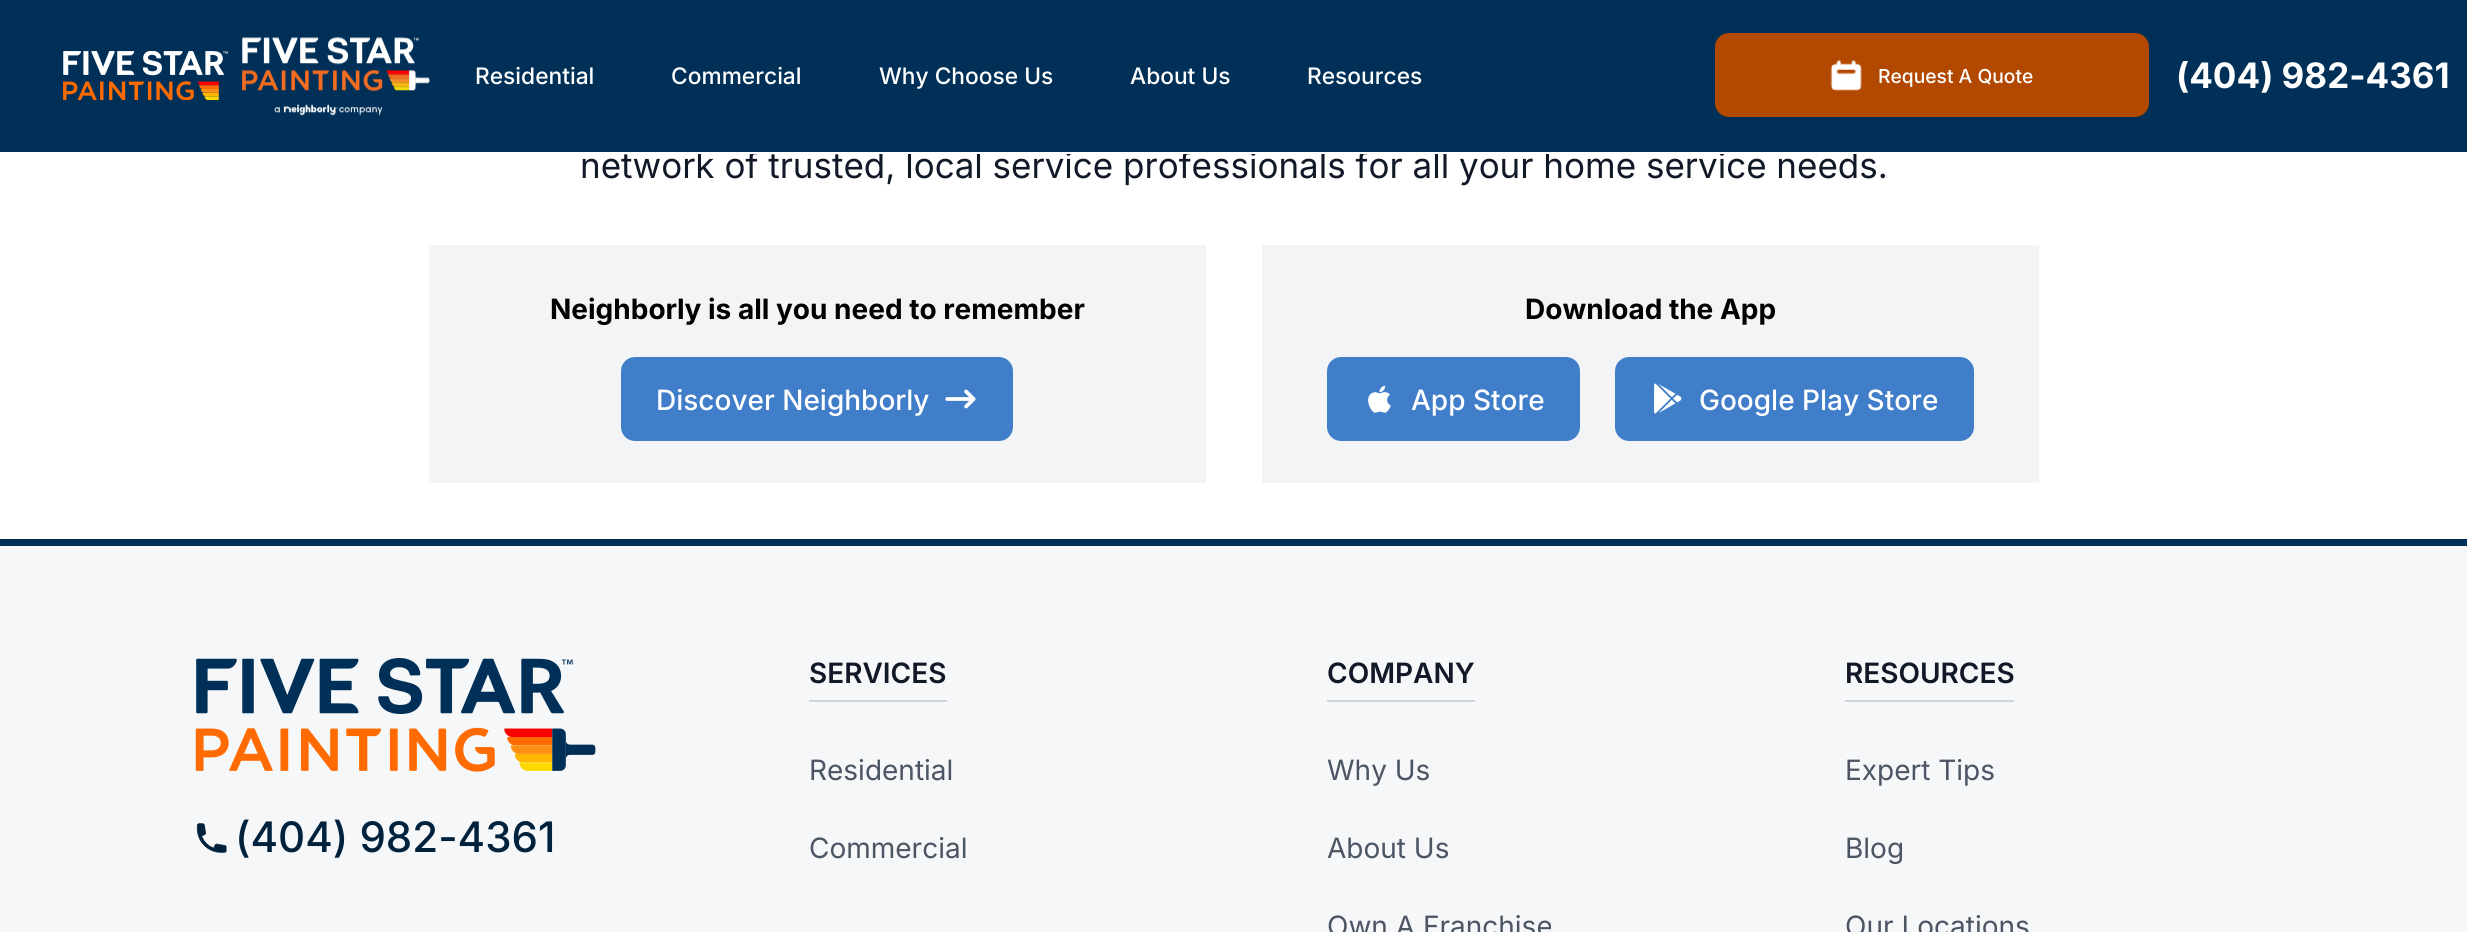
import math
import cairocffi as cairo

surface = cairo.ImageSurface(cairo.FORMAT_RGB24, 2467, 932)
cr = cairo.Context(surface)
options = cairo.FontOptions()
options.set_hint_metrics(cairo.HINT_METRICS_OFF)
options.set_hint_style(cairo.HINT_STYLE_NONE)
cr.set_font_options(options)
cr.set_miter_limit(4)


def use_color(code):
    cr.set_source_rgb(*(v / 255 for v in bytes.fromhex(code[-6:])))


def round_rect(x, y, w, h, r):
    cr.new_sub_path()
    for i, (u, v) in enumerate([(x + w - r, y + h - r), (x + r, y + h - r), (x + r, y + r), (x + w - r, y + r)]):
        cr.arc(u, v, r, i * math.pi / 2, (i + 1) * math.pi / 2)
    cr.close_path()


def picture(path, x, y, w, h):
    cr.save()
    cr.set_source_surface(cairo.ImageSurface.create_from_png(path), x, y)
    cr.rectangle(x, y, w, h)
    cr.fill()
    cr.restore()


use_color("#ffffff")
cr.paint()
cr.select_font_face("Inter")
cr.set_font_size(35)
use_color("#111827")
cr.move_to(580, 178)
cr.show_text("network of trusted, local service professionals for all your home service needs.")
use_color("#003057")
cr.rectangle(0, 0, 2467, 152)
cr.fill()
use_color("#ffffff")
cr.rectangle(697, 152, 1160, 2)
cr.fill()
picture("img1.png", 63, 51, 165, 49)
picture("img2.png", 242, 37, 188, 79)
cr.select_font_face("Inter Medium")
cr.set_font_size(22.75)
cr.move_to(475, 84)
cr.show_text("Residential")
cr.move_to(671, 84)
cr.show_text("Commercial")
cr.move_to(879, 84)
cr.show_text("Why Choose Us")
cr.move_to(1130, 84)
cr.show_text("About Us")
cr.move_to(1307, 84)
cr.show_text("Resources")
use_color("#b34900")
round_rect(1715, 33, 434, 84, 14)
cr.fill()
picture("img3.png", 1830, 59, 32, 32)
cr.set_font_size(19.25)
use_color("#ffffff")
cr.move_to(1878, 83)
cr.show_text("Request A Quote")
cr.select_font_face("Inter", cairo.FONT_SLANT_NORMAL, cairo.FONT_WEIGHT_BOLD)
cr.set_font_size(35)
cr.move_to(2176, 88)
cr.show_text("(404) 982-4361")
use_color("#f3f4f6")
cr.rectangle(429, 245, 777, 238)
cr.fill()
cr.set_font_size(28)
use_color("#000000")
cr.move_to(550, 319)
cr.show_text("Neighborly is all you need to remember")
use_color("#407ec9")
round_rect(621, 357, 392, 84, 14)
cr.fill()
cr.select_font_face("Inter Medium")
use_color("#ffffff")
cr.move_to(656, 410)
cr.show_text("Discover Neighborly")
picture("img4.png", 945, 389, 31, 20)
use_color("#f3f4f6")
cr.rectangle(1262, 245, 777, 238)
cr.fill()
cr.select_font_face("Inter", cairo.FONT_SLANT_NORMAL, cairo.FONT_WEIGHT_BOLD)
use_color("#000000")
cr.move_to(1525, 319)
cr.show_text("Download the App")
use_color("#407ec9")
round_rect(1327, 357, 253, 84, 14)
cr.fill()
picture("img5.png", 1368, 385, 23, 28)
cr.select_font_face("Inter Medium")
use_color("#ffffff")
cr.move_to(1411, 410)
cr.show_text("App Store")
use_color("#407ec9")
round_rect(1615, 357, 359, 84, 14)
cr.fill()
picture("img6.png", 1654, 383, 28, 31)
use_color("#ffffff")
cr.move_to(1699, 410)
cr.show_text("Google Play Store")
use_color("#f5f7f9")
cr.rectangle(0, 546, 2467, 386)
cr.fill()
use_color("#003057")
cr.rectangle(0, 539, 2467, 7)
cr.fill()
picture("img7.png", 195, 658, 401, 114)
picture("img8.png", 196, 823, 31, 30)
cr.set_font_size(42)
use_color("#00223d")
cr.move_to(235, 852)
cr.show_text("(404) 982-4361")
use_color("#d1d5db")
cr.rectangle(809, 700, 138, 2)
cr.fill()
cr.select_font_face("Inter SemiBold")
cr.set_font_size(28)
use_color("#111827")
cr.move_to(809, 683)
cr.show_text("SERVICES")
cr.select_font_face("Inter")
use_color("#4b5563")
cr.move_to(809, 780)
cr.show_text("Residential")
cr.move_to(809, 858)
cr.show_text("Commercial")
use_color("#d1d5db")
cr.rectangle(1327, 700, 148, 2)
cr.fill()
cr.select_font_face("Inter SemiBold")
use_color("#111827")
cr.move_to(1327, 683)
cr.show_text("COMPANY")
cr.select_font_face("Inter")
use_color("#4b5563")
cr.move_to(1327, 780)
cr.show_text("Why Us")
cr.move_to(1327, 858)
cr.show_text("About Us")
cr.move_to(1327, 936)
cr.show_text("Own A Franchise")
use_color("#d1d5db")
cr.rectangle(1845, 700, 169, 2)
cr.fill()
cr.select_font_face("Inter SemiBold")
use_color("#111827")
cr.move_to(1845, 683)
cr.show_text("RESOURCES")
cr.select_font_face("Inter")
use_color("#4b5563")
cr.move_to(1845, 780)
cr.show_text("Expert Tips")
cr.move_to(1845, 858)
cr.show_text("Blog")
cr.move_to(1845, 936)
cr.show_text("Our Locations")
surface.write_to_png("result.png")
